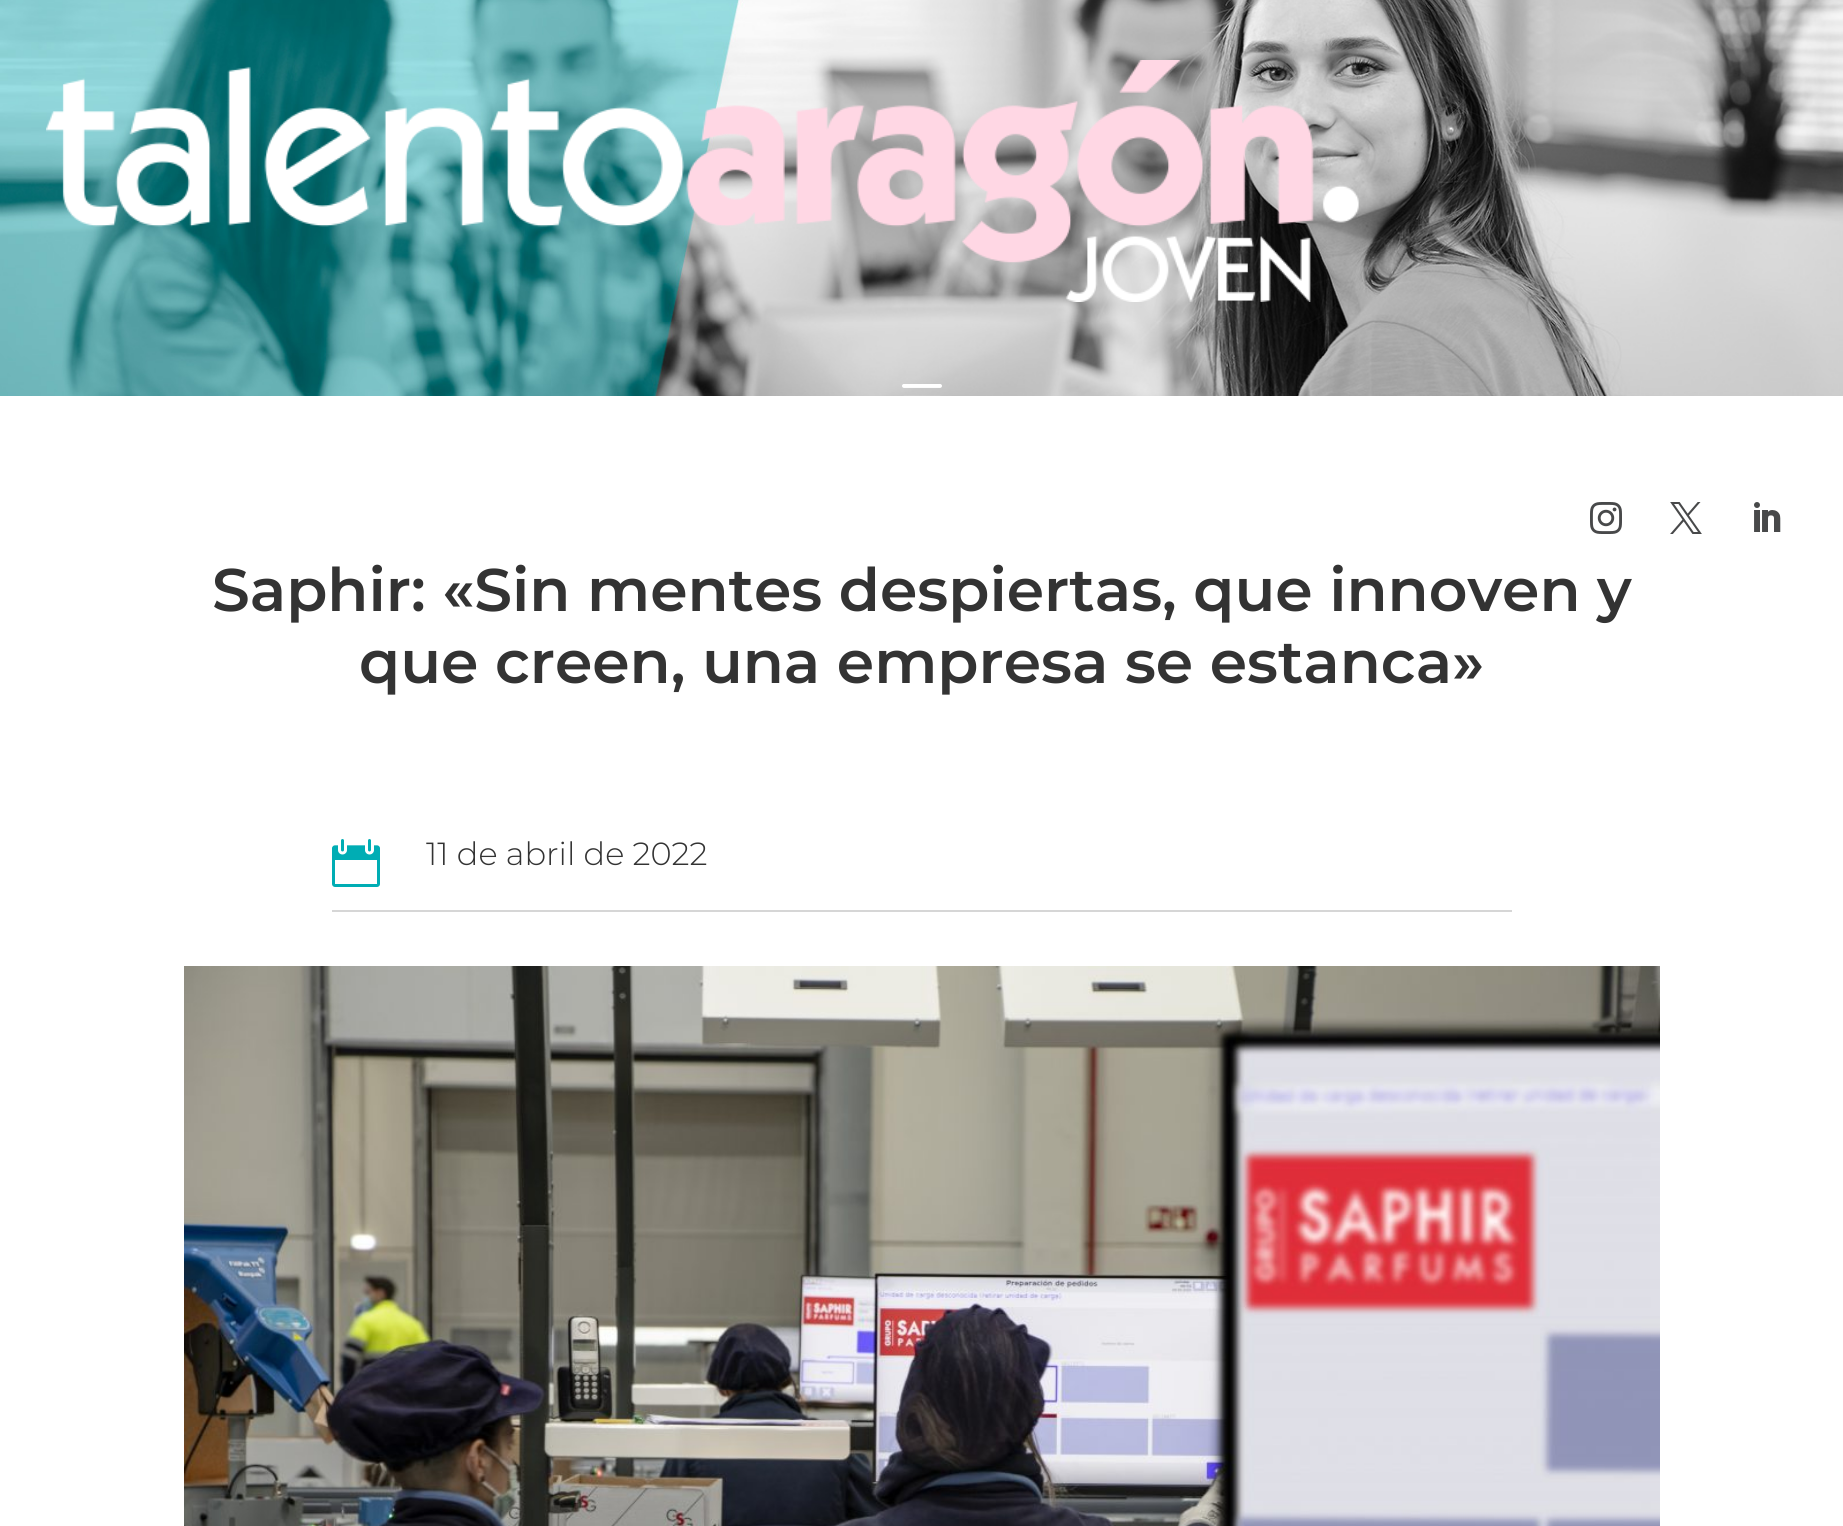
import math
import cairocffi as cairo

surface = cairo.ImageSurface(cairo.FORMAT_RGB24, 1843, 1526)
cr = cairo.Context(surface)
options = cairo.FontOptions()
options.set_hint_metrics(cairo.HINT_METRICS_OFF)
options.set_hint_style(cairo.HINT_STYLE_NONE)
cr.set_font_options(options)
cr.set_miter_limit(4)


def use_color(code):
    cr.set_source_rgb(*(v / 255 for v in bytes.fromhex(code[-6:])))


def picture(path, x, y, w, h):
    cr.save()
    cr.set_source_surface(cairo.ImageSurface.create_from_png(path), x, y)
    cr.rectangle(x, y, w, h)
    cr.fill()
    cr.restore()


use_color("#ffffff")
cr.paint()
picture("img6.png", 0, 0, 1843, 396)
picture("img1.png", 46, 60, 1313, 242)
picture("img2.png", 902, 384, 40, 12)
picture("img3.png", 1590, 502, 32, 32)
picture("img4.png", 1670, 502, 32, 32)
picture("img5.png", 1754, 502, 27, 30)
cr.select_font_face("Montserrat SemiBold")
cr.set_font_size(60)
use_color("#333333")
cr.move_to(212, 611)
cr.show_text("Saphir: «Sin mentes despiertas, que innoven y")
cr.move_to(359, 683)
cr.show_text("que creen, una empresa se estanca»")
picture("img7.png", 332, 839, 48, 48)
cr.select_font_face("Montserrat Light")
cr.set_font_size(32)
cr.move_to(426, 865)
cr.show_text("11 de abril de 2022")
use_color("#d6d6d6")
cr.rectangle(332, 910, 1180, 2)
cr.fill()
picture("img8.png", 184, 966, 1476, 560)
surface.write_to_png("result.png")
